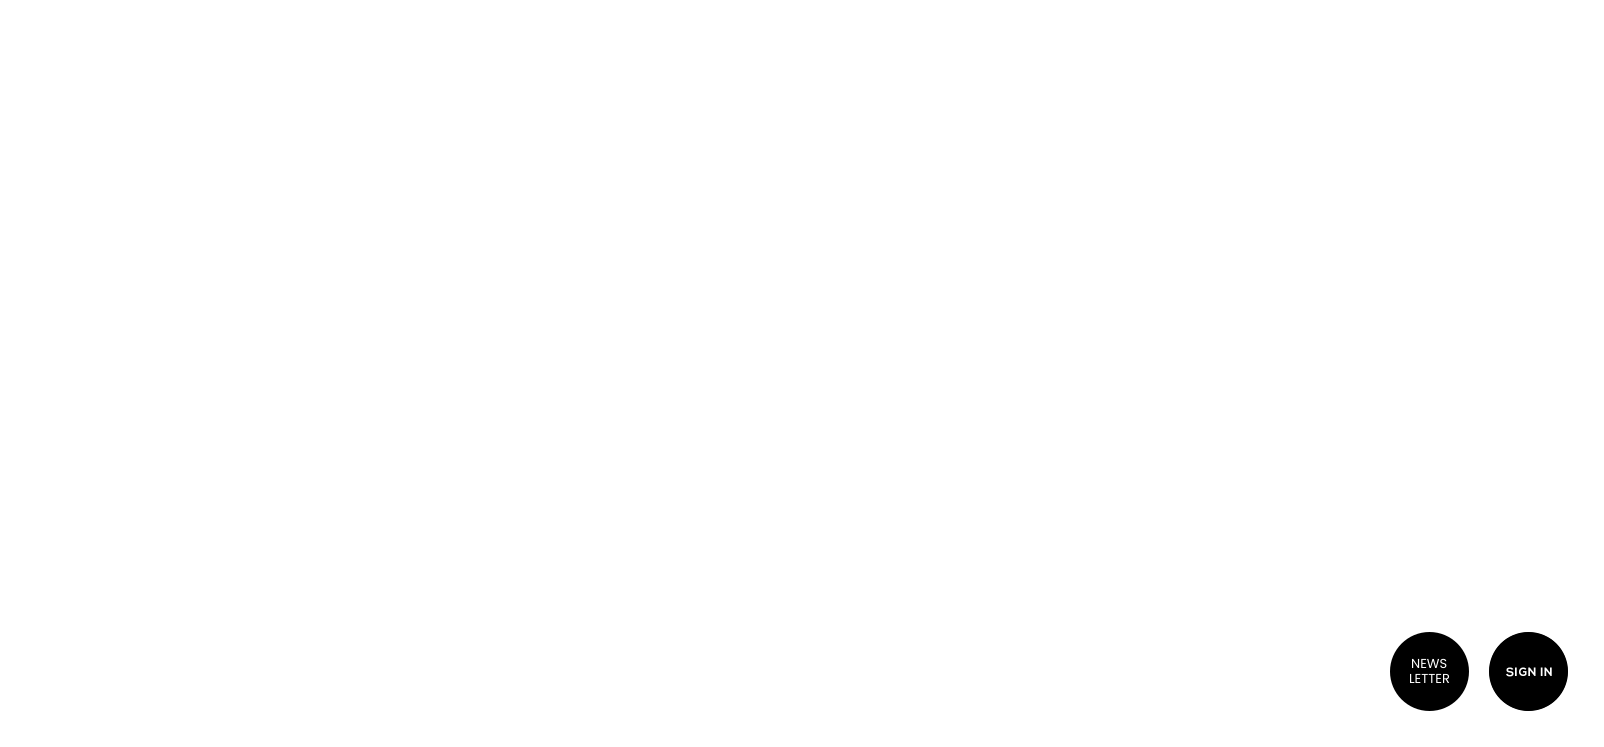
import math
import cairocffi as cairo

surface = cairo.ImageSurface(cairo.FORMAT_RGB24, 1604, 747)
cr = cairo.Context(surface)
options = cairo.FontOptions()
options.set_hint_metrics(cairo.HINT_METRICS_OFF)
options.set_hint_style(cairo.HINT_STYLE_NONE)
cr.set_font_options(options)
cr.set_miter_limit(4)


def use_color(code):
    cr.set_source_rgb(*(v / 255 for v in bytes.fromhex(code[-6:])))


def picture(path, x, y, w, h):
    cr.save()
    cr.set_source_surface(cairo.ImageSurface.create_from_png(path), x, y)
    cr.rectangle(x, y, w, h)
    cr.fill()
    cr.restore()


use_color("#ffffff")
cr.paint()
use_color("#000000")
cr.arc(1429.5, 671.5, 39.5, 0, 2 * math.pi)
cr.fill()
cr.select_font_face("Poppins")
cr.set_font_size(13)
use_color("#ffffff")
cr.move_to(1411, 668)
cr.show_text("NEWS")
cr.move_to(1409, 683)
cr.show_text("LETTER")
use_color("#000000")
cr.new_path()
cr.arc(1528.5, 671.5, 39.5, 0, 2 * math.pi)
cr.fill()
picture("img1.png", 1489, 632, 79, 79)
surface.write_to_png("result.png")
